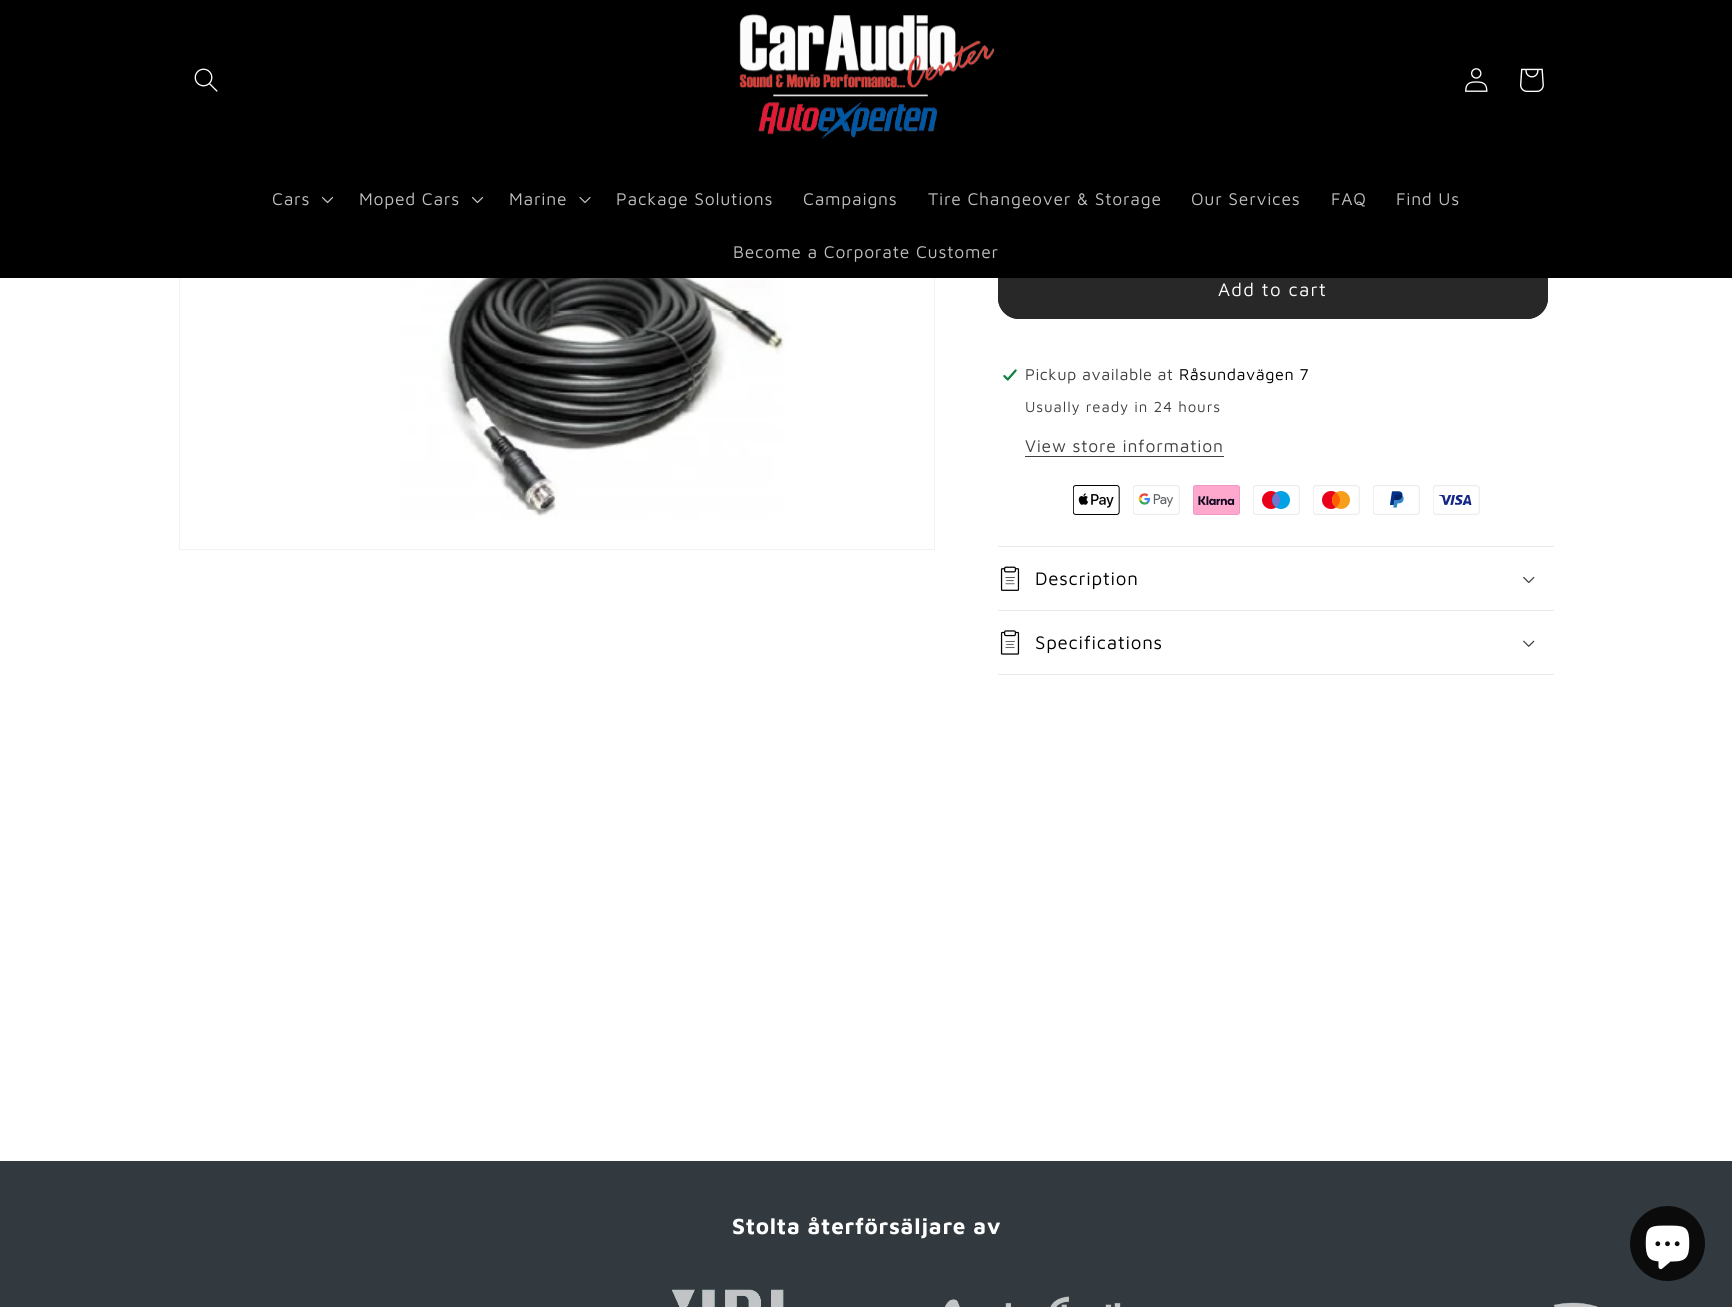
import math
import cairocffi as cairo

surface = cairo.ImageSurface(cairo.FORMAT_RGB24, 1732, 1307)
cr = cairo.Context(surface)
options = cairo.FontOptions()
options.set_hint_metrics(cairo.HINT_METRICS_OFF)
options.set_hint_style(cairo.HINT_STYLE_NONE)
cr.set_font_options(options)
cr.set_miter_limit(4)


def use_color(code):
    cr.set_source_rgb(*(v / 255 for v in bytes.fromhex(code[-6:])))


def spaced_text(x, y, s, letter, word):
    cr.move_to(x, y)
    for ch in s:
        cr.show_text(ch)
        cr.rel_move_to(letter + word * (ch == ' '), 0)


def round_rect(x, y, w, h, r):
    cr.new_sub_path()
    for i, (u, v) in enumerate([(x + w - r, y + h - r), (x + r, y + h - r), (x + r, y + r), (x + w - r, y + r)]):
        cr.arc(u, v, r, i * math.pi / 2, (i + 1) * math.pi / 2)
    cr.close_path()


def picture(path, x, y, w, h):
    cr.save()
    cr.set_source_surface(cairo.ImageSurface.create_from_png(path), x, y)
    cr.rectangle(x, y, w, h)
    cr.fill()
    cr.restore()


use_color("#ffffff")
cr.paint()
cr.rectangle(179.5, -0.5, 755, 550)
use_color("#f2f2f2")
cr.set_line_width(1)
cr.stroke()
use_color("#282828")
round_rect(998, 260, 550, 59, 21)
cr.fill()
round_rect(998.5, 260.5, 549, 58, 20.5)
cr.stroke()
use_color("#000000")
cr.rectangle(0, 0, 1732, 278)
cr.fill()
picture("img1.png", 194, 68, 24, 24)
picture("img2.png", 739, 14, 256, 125)
picture("img3.png", 1465, 68, 23, 24)
picture("img4.png", 1520, 68, 24, 24)
cr.select_font_face("Maven Pro")
cr.set_font_size(17.5)
use_color("#bfbfbf")
spaced_text(272, 205, "Cars", 0.75, 0)
picture("img5.png", 321, 196, 13, 8)
spaced_text(359, 205, "Moped Cars", 0.75, 0)
picture("img5.png", 471, 196, 13, 8)
spaced_text(509, 205, "Marine", 0.75, 0)
picture("img6.png", 579, 197, 12, 6)
spaced_text(616, 205, "Package Solutions", 0.75, 0)
spaced_text(803, 205, "Campaigns", 0.75, 0)
spaced_text(928, 205, "Tire Changeover & Storage", 0.75, 0)
spaced_text(1191, 205, "Our Services", 0.75, 0)
spaced_text(1331, 205, "FAQ", 0.75, 0)
spaced_text(1396, 205, "Find Us", 0.75, 0)
spaced_text(733, 258, "Become a Corporate Customer", 0.75, 0)
picture("img7.png", 199, 278, 727, 241)
cr.set_font_size(18.75)
use_color("#ffffff")
spaced_text(1218, 296, "Add to cart", 1.25, 0)
picture("img8.png", 1002, 368, 16, 14)
cr.set_font_size(16.25)
use_color("#404040")
spaced_text(1025, 380, "Pickup available at", 0.5, 0)
use_color("#000000")
spaced_text(1179, 380, "Råsundavägen 7", 0.5, 0)
cr.set_font_size(15)
use_color("#404040")
spaced_text(1025, 412, "Usually ready in 24 hours", 0.9, 0)
cr.set_font_size(17.5)
spaced_text(1025, 452, "View store information", 0.75, 0)
cr.rectangle(1025, 456, 199, 1)
cr.fill()
picture("img9.png", 1073, 485, 47, 30)
picture("img10.png", 1133, 485, 47, 30)
picture("img11.png", 1193, 485, 47, 30)
picture("img12.png", 1253, 485, 47, 30)
picture("img13.png", 1313, 485, 47, 30)
picture("img14.png", 1373, 485, 47, 30)
picture("img15.png", 1433, 485, 47, 30)
use_color("#ebebeb")
cr.rectangle(998, 546, 556, 1)
cr.fill()
cr.rectangle(998, 610, 556, 1)
cr.fill()
picture("img16.png", 1000, 566, 20, 25)
cr.set_font_size(18.75)
use_color("#000000")
spaced_text(1035, 585, "Description", 0.75, 0)
picture("img17.png", 1523, 576, 12, 8)
use_color("#ebebeb")
cr.rectangle(998, 674, 556, 1)
cr.fill()
picture("img18.png", 1000, 630, 20, 25)
use_color("#000000")
spaced_text(1035, 649, "Specifications", 0.75, 0)
picture("img19.png", 1523, 640, 12, 7)
use_color("#333a3f")
cr.rectangle(0, 1161, 1732, 146)
cr.fill()
cr.select_font_face("Maven Pro", cairo.FONT_SLANT_NORMAL, cairo.FONT_WEIGHT_BOLD)
cr.set_font_size(22.5)
use_color("#ffffff")
spaced_text(732, 1234, "Stolta återförsäljare av", 0.75, 0)
picture("img20.png", 672, 1289, 112, 18)
picture("img21.png", 945, 1296, 176, 11)
picture("img22.png", 1553, 1302, 46, 5)
use_color("#0b0b0b")
cr.arc(1667.5, 1243.5, 37.5, 0, 2 * math.pi)
cr.fill()
picture("img23.png", 1645, 1225, 45, 45)
surface.write_to_png("result.png")
